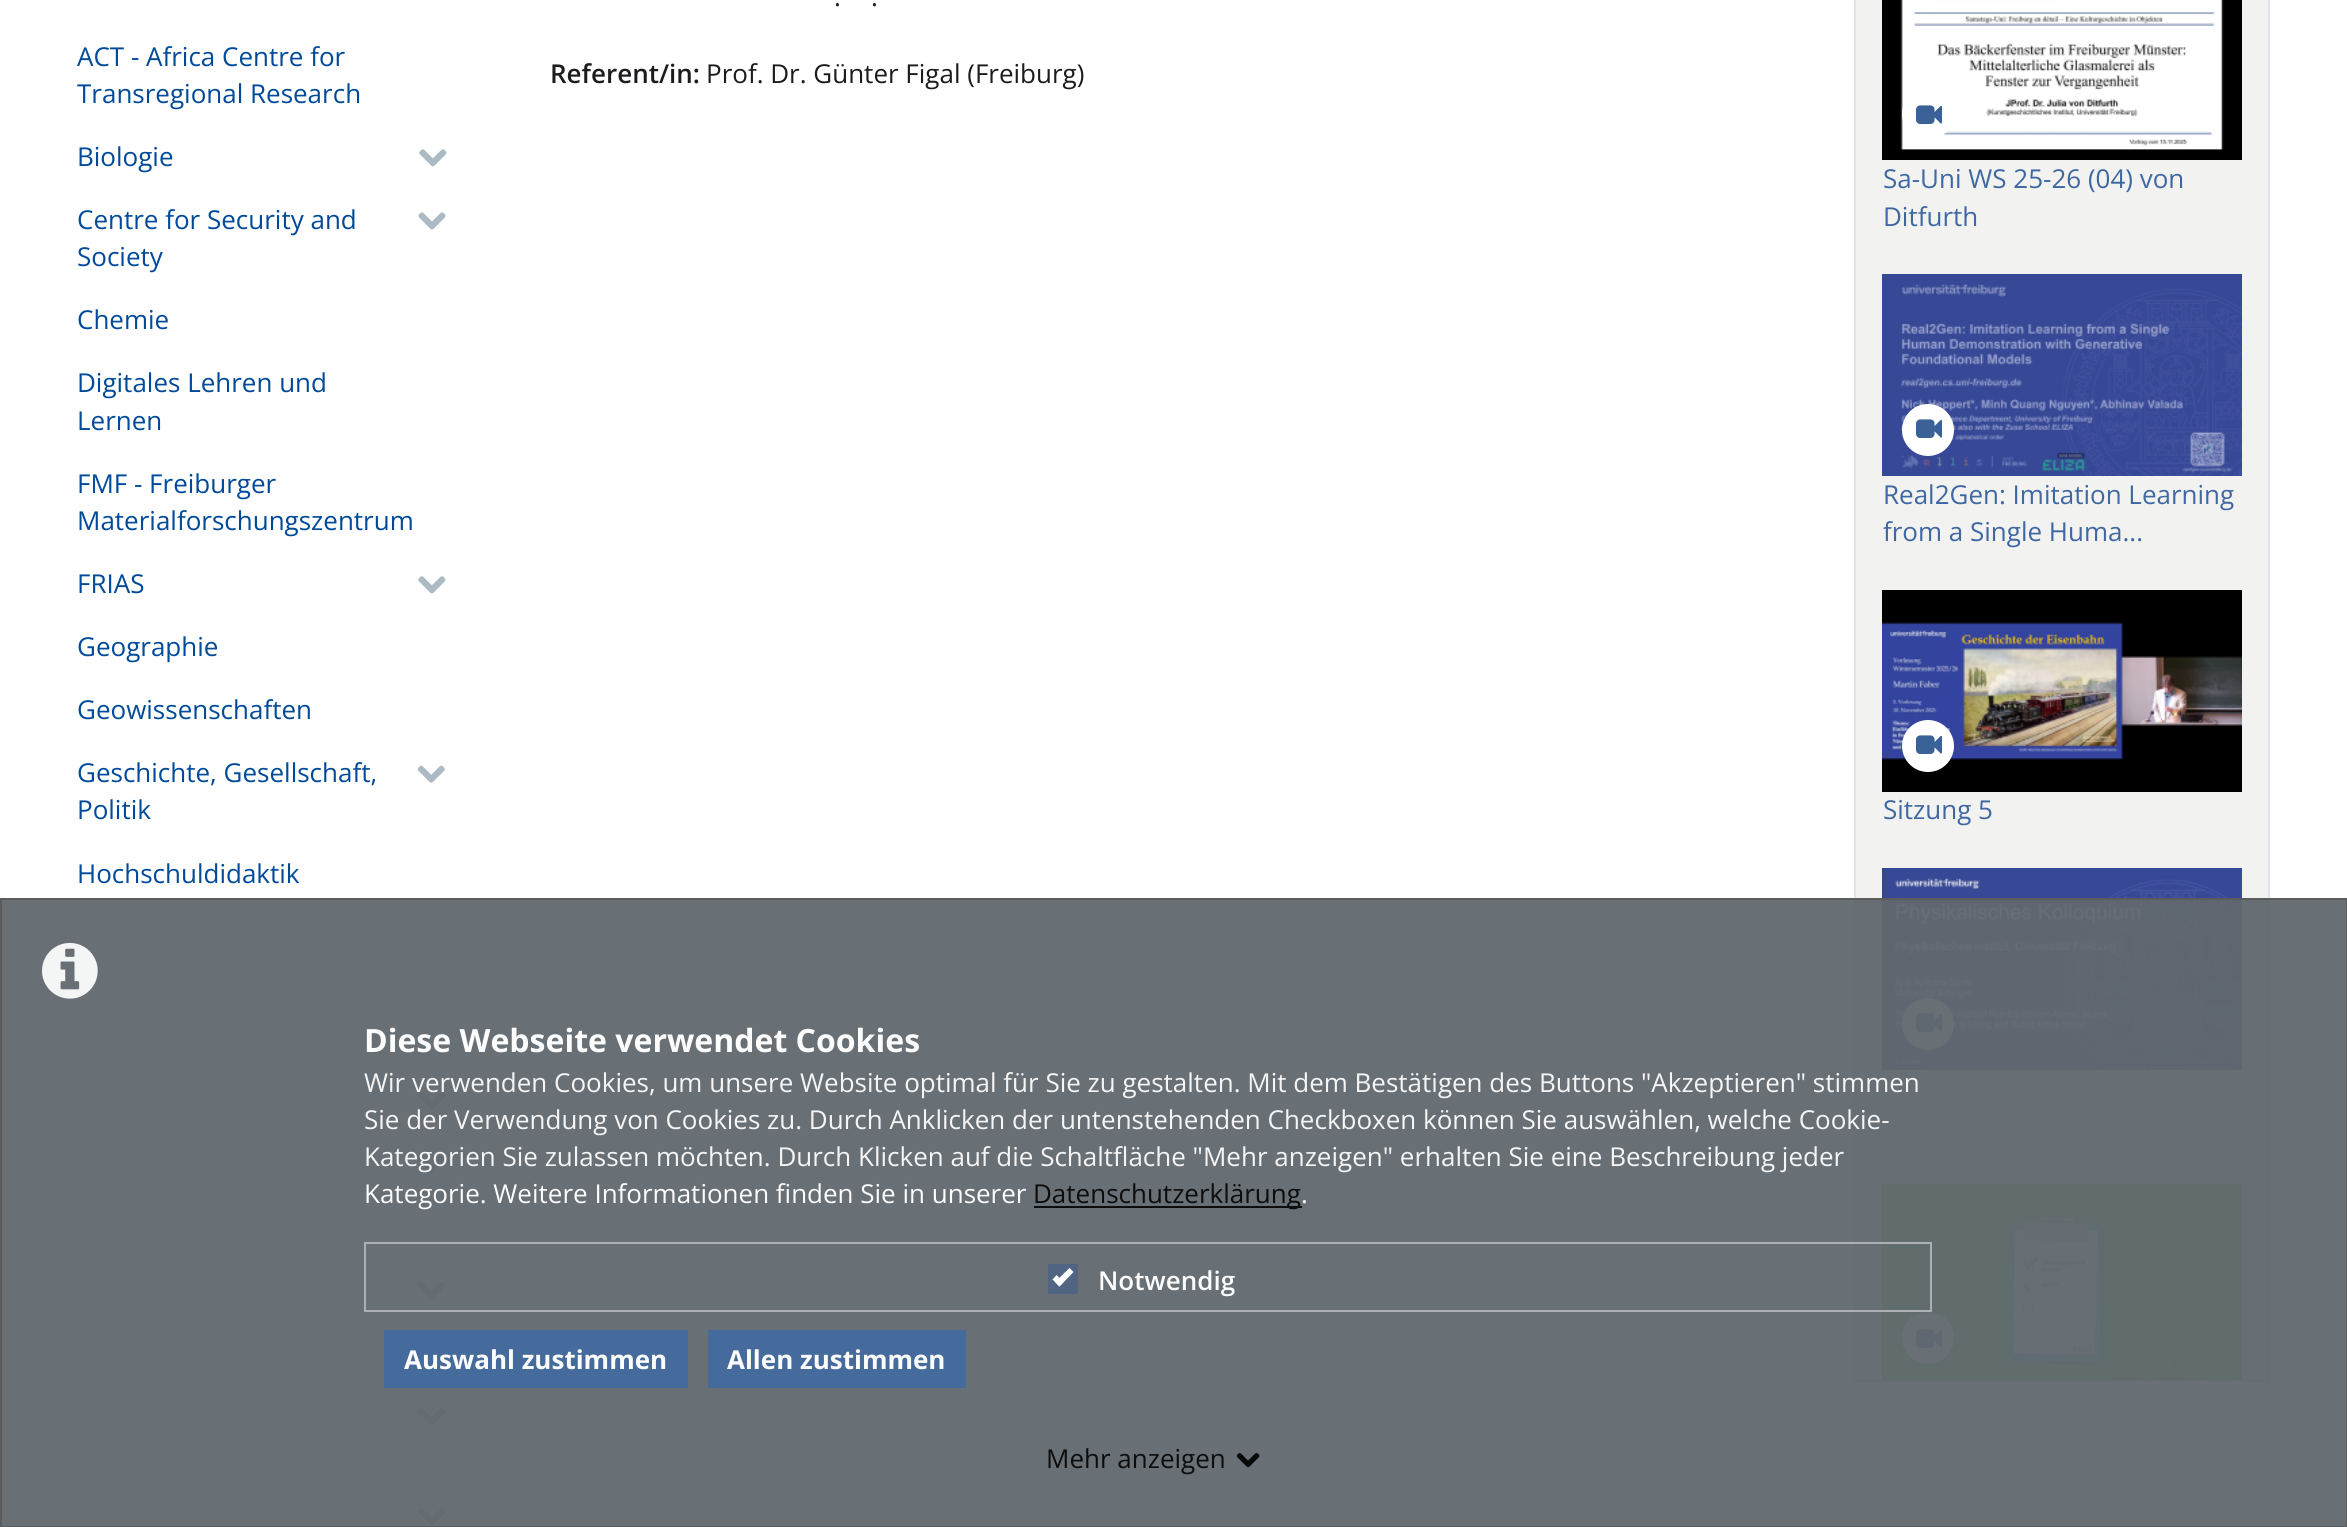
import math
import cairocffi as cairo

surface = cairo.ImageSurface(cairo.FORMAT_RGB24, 2347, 1527)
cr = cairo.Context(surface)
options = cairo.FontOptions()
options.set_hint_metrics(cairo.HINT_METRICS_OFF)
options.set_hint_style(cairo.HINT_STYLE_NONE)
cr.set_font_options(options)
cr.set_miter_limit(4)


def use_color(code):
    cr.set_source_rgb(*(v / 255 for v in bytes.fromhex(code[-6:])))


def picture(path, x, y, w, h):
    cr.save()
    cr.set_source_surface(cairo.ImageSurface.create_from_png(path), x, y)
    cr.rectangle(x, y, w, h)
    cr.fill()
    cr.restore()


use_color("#ffffff")
cr.paint()
cr.select_font_face("Open Sans")
cr.set_font_size(26)
use_color("#004a99")
cr.move_to(77, 66)
cr.show_text("ACT - Africa Centre for")
cr.move_to(77, 103)
cr.show_text("Transregional Research")
cr.move_to(77, 166)
cr.show_text("Biologie")
picture("img1.png", 419, 149, 28, 18)
cr.move_to(77, 229)
cr.show_text("Centre for Security and")
cr.move_to(77, 266)
cr.show_text("Society")
picture("img2.png", 418, 212, 28, 18)
cr.move_to(77, 329)
cr.show_text("Chemie")
cr.move_to(77, 392)
cr.show_text("Digitales Lehren und")
cr.move_to(77, 430)
cr.show_text("Lernen")
cr.move_to(77, 493)
cr.show_text("FMF - Freiburger")
cr.move_to(77, 530)
cr.show_text("Materialforschungszentrum")
cr.move_to(77, 593)
cr.show_text("FRIAS")
picture("img1.png", 418, 576, 28, 18)
cr.move_to(77, 656)
cr.show_text("Geographie")
cr.move_to(77, 719)
cr.show_text("Geowissenschaften")
cr.move_to(77, 782)
cr.show_text("Geschichte, Gesellschaft,")
cr.move_to(77, 819)
cr.show_text("Politik")
picture("img3.png", 417, 765, 28, 18)
cr.move_to(77, 883)
cr.show_text("Hochschuldidaktik")
picture("img2.png", 418, 1092, 28, 18)
picture("img4.png", 417, 1155, 28, 18)
picture("img5.png", 417, 1281, 28, 18)
picture("img6.png", 418, 1408, 28, 18)
picture("img1.png", 418, 1508, 28, 18)
use_color("#1a1c1e")
cr.move_to(834, 6)
cr.show_text(".")
cr.move_to(871, 6)
cr.show_text(".")
cr.select_font_face("Open Sans SemiBold")
cr.move_to(550, 83)
cr.show_text("Referent/in:")
cr.select_font_face("Open Sans")
cr.move_to(706, 83)
cr.show_text("Prof. Dr. Günter Figal (Freiburg)")
use_color("#f2f3f1")
cr.rectangle(1855, -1, 414, 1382)
cr.fill_preserve()
use_color("#dfe5eb")
cr.stroke()
picture("img7.png", 1882, 0, 360, 160)
use_color("#ffffff")
cr.arc(1928, 114, 26, 0, 2 * math.pi)
cr.fill()
picture("img8.png", 1916, 105, 26, 19)
use_color("#3f68a2")
cr.move_to(1883, 188)
cr.show_text("Sa-Uni WS 25-26 (04) von")
cr.move_to(1883, 226)
cr.show_text("Ditfurth")
picture("img9.png", 1882, 274, 360, 202)
use_color("#ffffff")
cr.arc(1928, 430, 26, 0, 2 * math.pi)
cr.fill()
picture("img8.png", 1916, 419, 26, 19)
use_color("#3f68a2")
cr.move_to(1883, 504)
cr.show_text("Real2Gen: Imitation Learning")
cr.move_to(1883, 541)
cr.show_text("from a Single Huma...")
picture("img10.png", 1882, 590, 360, 202)
use_color("#ffffff")
cr.arc(1928, 746, 26, 0, 2 * math.pi)
cr.fill()
picture("img8.png", 1916, 735, 26, 19)
use_color("#3f68a2")
cr.move_to(1883, 819)
cr.show_text("Sitzung 5")
picture("img11.png", 1882, 868, 360, 202)
use_color("#ffffff")
cr.arc(1928, 1024, 26, 0, 2 * math.pi)
cr.fill()
picture("img8.png", 1916, 1013, 26, 19)
picture("img12.png", 1882, 1184, 360, 196)
cr.arc(1928, 1338, 26, 0, 2 * math.pi)
cr.fill()
picture("img8.png", 1916, 1329, 26, 19)
cr.set_source_rgba(0.38, 0.408, 0.435, 0.95)
cr.rectangle(0, 898, 2347, 629)
cr.fill()
cr.rectangle(1, 899, 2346, 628)
cr.set_source_rgba(0.361, 0.361, 0.361, 0.95)
cr.stroke()
picture("img13.png", 42, 942, 56, 57)
cr.select_font_face("Open Sans", cairo.FONT_SLANT_NORMAL, cairo.FONT_WEIGHT_BOLD)
cr.set_font_size(32)
use_color("#fcfcfc")
cr.move_to(364, 1052)
cr.show_text("Diese Webseite verwendet Cookies")
cr.select_font_face("Open Sans")
cr.set_font_size(26)
use_color("#f5f5f5")
cr.move_to(364, 1092)
cr.show_text("Wir verwenden Cookies, um unsere Website optimal für Sie zu gestalten. Mit dem Bestätigen des Buttons \"Akzeptieren\" stimmen")
cr.move_to(364, 1129)
cr.show_text("Sie der Verwendung von Cookies zu. Durch Anklicken der untenstehenden Checkboxen können Sie auswählen, welche Cookie-")
cr.move_to(364, 1166)
cr.show_text("Kategorien Sie zulassen möchten. Durch Klicken auf die Schaltfläche \"Mehr anzeigen\" erhalten Sie eine Beschreibung jeder")
use_color("#fcfcfc")
cr.move_to(364, 1203)
cr.show_text("Kategorie. Weitere Informationen finden Sie in unserer")
use_color("#0d0d0d")
cr.rectangle(1034, 1206, 268, 2)
cr.fill()
cr.move_to(1033, 1203)
cr.show_text("Datenschutzerklärung")
use_color("#fcfcfc")
cr.move_to(1301, 1203)
cr.show_text(".")
cr.rectangle(365, 1243, 1566, 68)
cr.set_source_rgba(0.69, 0.702, 0.722, 0.95)
cr.stroke()
use_color("#506582")
cr.rectangle(1048, 1264, 30, 30)
cr.fill()
use_color("#ffffff")
cr.new_path()
cr.move_to(1069.5, 1268)
cr.line_to(1073.5, 1272)
cr.line_to(1059.5, 1286.5)
cr.line_to(1055, 1282)
cr.close_path()
cr.fill()
cr.new_path()
cr.move_to(1056.5, 1275)
cr.line_to(1063.5, 1282)
cr.line_to(1059.5, 1286.5)
cr.line_to(1052.5, 1279.5)
cr.close_path()
cr.fill()
cr.select_font_face("Open Sans SemiBold")
use_color("#fcfcfc")
cr.move_to(1098, 1290)
cr.show_text("Notwendig")
use_color("#456a9c")
cr.rectangle(384, 1330, 304, 58)
cr.fill()
cr.select_font_face("Open Sans", cairo.FONT_SLANT_NORMAL, cairo.FONT_WEIGHT_BOLD)
use_color("#fcfcfc")
cr.move_to(404, 1369)
cr.show_text("Auswahl zustimmen")
use_color("#456a9c")
cr.rectangle(708, 1330, 258, 58)
cr.fill()
use_color("#fcfcfc")
cr.move_to(727, 1369)
cr.show_text("Allen zustimmen")
cr.select_font_face("Open Sans")
use_color("#0d0d0d")
cr.move_to(1046, 1468)
cr.show_text("Mehr anzeigen")
picture("img14.png", 1236, 1453, 24, 15)
surface.write_to_png("result.png")
